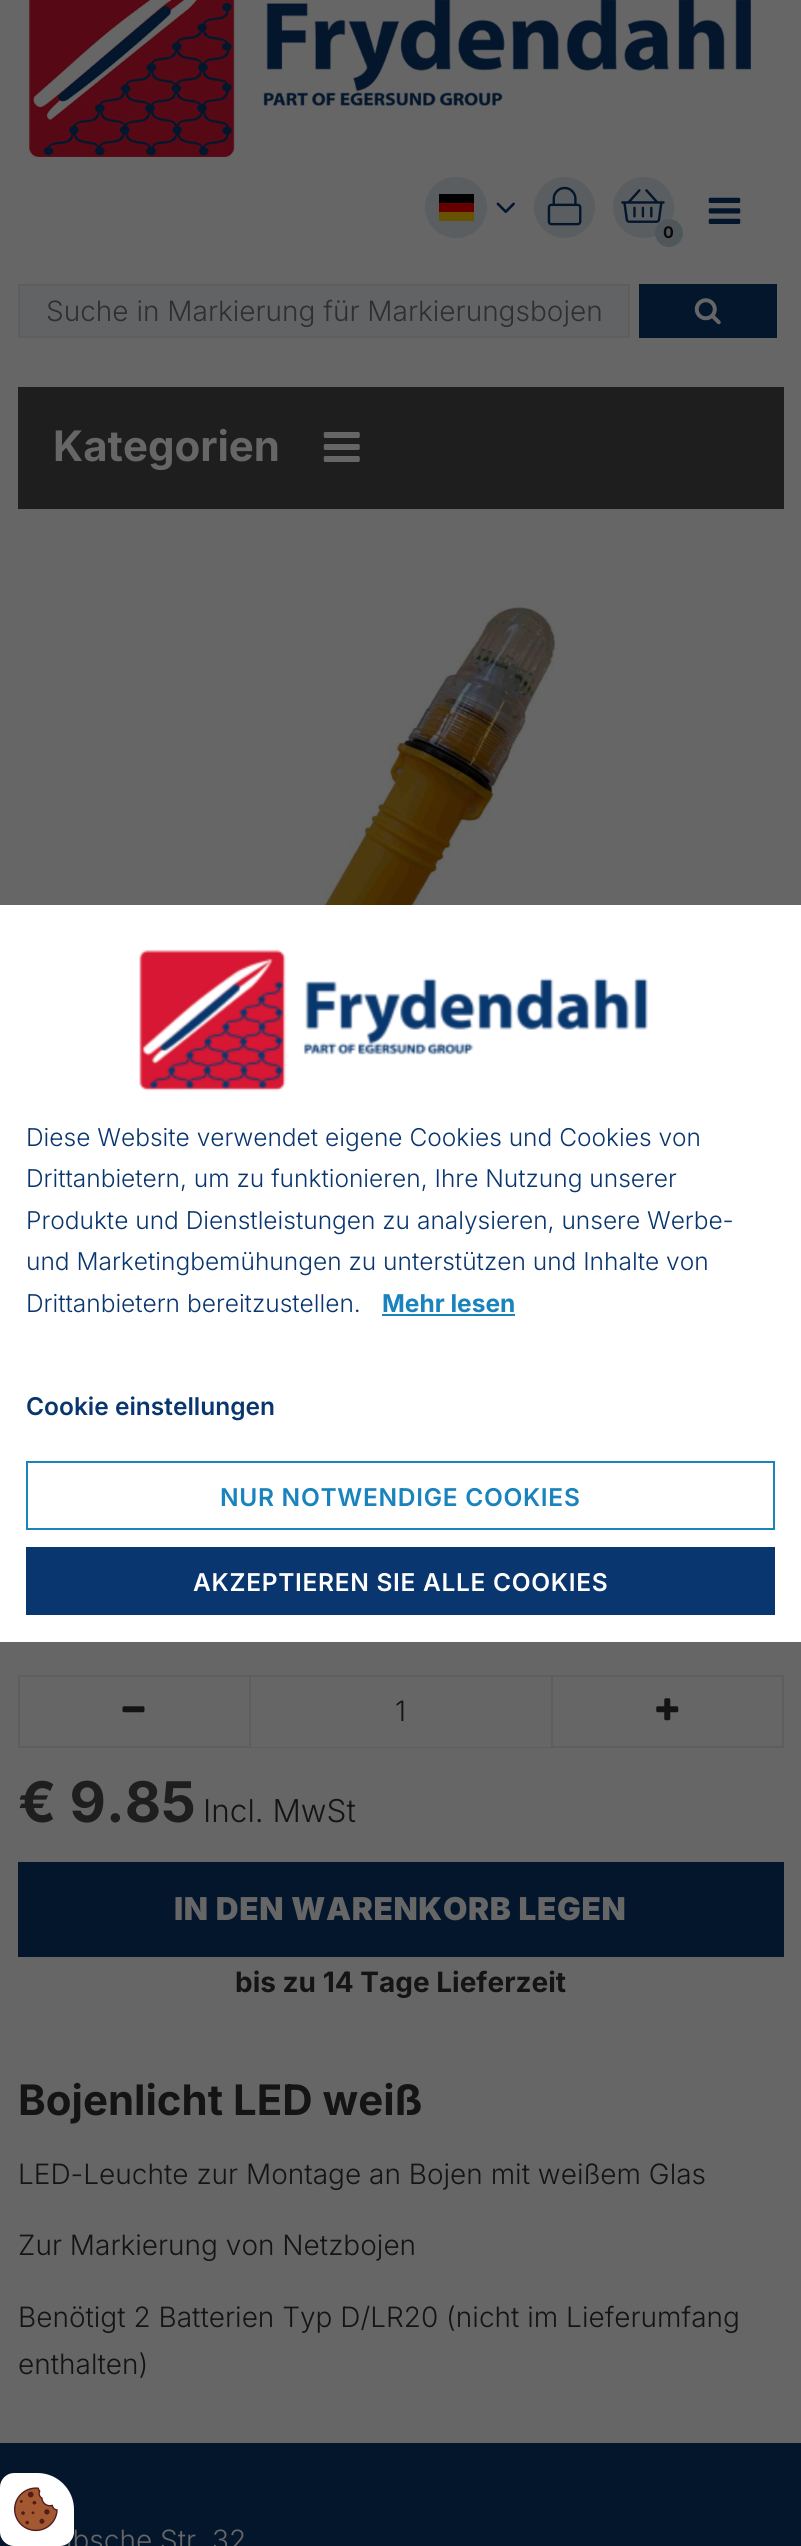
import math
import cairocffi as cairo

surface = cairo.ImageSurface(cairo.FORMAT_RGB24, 801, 2546)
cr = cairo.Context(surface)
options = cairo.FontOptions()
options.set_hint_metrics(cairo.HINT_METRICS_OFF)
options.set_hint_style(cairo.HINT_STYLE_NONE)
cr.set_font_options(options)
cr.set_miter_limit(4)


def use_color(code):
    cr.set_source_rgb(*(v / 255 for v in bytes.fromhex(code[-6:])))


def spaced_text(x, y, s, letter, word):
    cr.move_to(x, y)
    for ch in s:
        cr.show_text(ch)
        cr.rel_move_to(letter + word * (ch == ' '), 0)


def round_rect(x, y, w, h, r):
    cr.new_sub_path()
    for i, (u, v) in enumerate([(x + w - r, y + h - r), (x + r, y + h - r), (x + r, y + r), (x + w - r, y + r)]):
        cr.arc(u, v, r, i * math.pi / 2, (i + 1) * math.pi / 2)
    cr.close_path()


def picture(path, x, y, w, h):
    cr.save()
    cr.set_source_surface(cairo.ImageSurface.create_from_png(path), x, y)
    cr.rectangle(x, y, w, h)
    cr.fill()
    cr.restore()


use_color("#666666")
cr.paint()
picture("img1.png", 29, 0, 722, 157)
use_color("#5a5e60")
round_rect(425, 177, 62, 61, 30.5)
cr.fill()
use_color("#665200")
cr.rectangle(439, 212, 35, 9)
cr.fill()
use_color("#000000")
cr.rectangle(439, 194, 35, 9)
cr.fill()
use_color("#660000")
cr.rectangle(439, 203, 35, 9)
cr.fill()
picture("img2.png", 496, 202, 19, 11)
use_color("#5a5e60")
cr.arc(564.5, 207.5, 30.5, 0, 2 * math.pi)
cr.fill()
picture("img3.png", 547, 186, 35, 40)
picture("img4.png", 708, 197, 33, 27)
cr.arc(643.5, 207.5, 30.5, 0, 2 * math.pi)
cr.fill()
picture("img5.png", 621, 189, 44, 34)
use_color("#50575a")
cr.arc(669, 233, 14, 0, 2 * math.pi)
cr.fill()
cr.select_font_face("Inter", cairo.FONT_SLANT_NORMAL, cairo.FONT_WEIGHT_BOLD)
cr.set_font_size(16)
use_color("#0a0a0a")
cr.move_to(663, 238)
cr.show_text("0")
use_color("#626364")
cr.rectangle(19, 285, 610, 52)
cr.fill_preserve()
use_color("#5e5e5f")
cr.stroke()
cr.select_font_face("Inter Light")
cr.set_font_size(28)
use_color("#2f2f2f")
cr.move_to(46, 321)
cr.show_text("Suche in Markierung für Markierungsbojen")
use_color("#04162c")
cr.rectangle(639, 284, 138, 54)
cr.fill()
picture("img6.png", 694, 298, 27, 27)
use_color("#1e1e1e")
cr.rectangle(18, 387, 766, 122)
cr.fill()
cr.select_font_face("Inter", cairo.FONT_SLANT_NORMAL, cairo.FONT_WEIGHT_BOLD)
cr.set_font_size(42)
use_color("#666666")
cr.move_to(53, 461)
cr.show_text("Kategorien")
picture("img7.png", 323, 432, 37, 30)
picture("img8.png", 260, 602, 298, 303)
cr.rectangle(19, 1676, 764, 71)
use_color("#5e5e5f")
cr.stroke()
picture("img9.png", 122, 1706, 23, 7)
use_color("#666666")
cr.rectangle(251, 1746, 300, 1)
cr.fill()
use_color("#5e5e5f")
cr.rectangle(551, 1677, 2, 70)
cr.fill()
cr.rectangle(249, 1677, 2, 70)
cr.fill()
cr.select_font_face("Inter Light")
cr.set_font_size(28)
use_color("#141414")
cr.move_to(395, 1721)
cr.show_text("1")
picture("img10.png", 656, 1698, 23, 23)
cr.select_font_face("Inter", cairo.FONT_SLANT_NORMAL, cairo.FONT_WEIGHT_BOLD)
cr.set_font_size(56)
use_color("#1e1e1e")
cr.move_to(18, 1822)
cr.show_text("€ 9.85")
cr.select_font_face("Inter Light")
cr.set_font_size(31.5)
use_color("#141414")
cr.move_to(203, 1822)
cr.show_text("Incl. MwSt")
use_color("#04162c")
cr.rectangle(18, 1862, 766, 95)
cr.fill()
cr.select_font_face("Inter Black")
use_color("#666666")
spaced_text(174, 1920, "IN DEN WARENKORB LEGEN", 0.7, 0)
cr.select_font_face("Inter", cairo.FONT_SLANT_NORMAL, cairo.FONT_WEIGHT_BOLD)
cr.set_font_size(28)
use_color("#141414")
cr.move_to(235, 1992)
cr.show_text("bis zu 14 Tage Lieferzeit")
cr.set_font_size(42)
cr.move_to(18, 2115)
cr.show_text("Bojenlicht LED weiß")
cr.select_font_face("Inter Light")
cr.set_font_size(28)
cr.move_to(18, 2184)
cr.show_text("LED-Leuchte zur Montage an Bojen mit weißem Glas")
cr.move_to(18, 2255)
cr.show_text("Zur Markierung von Netzbojen")
cr.move_to(18, 2327)
cr.show_text("Benötigt 2 Batterien Typ D/LR20 (nicht im Lieferumfang")
cr.move_to(18, 2374)
cr.show_text("enthalten)")
use_color("#ffffff")
cr.rectangle(0, 905, 801, 737)
cr.fill()
picture("img11.png", 139, 949, 509, 142)
cr.set_font_size(24.5)
use_color("#09366e")
cr.move_to(26, 1146)
cr.show_text("Diese Website verwendet eigene Cookies und Cookies von")
cr.move_to(26, 1187)
cr.show_text("Drittanbietern, um zu funktionieren, Ihre Nutzung unserer")
cr.move_to(26, 1229)
cr.show_text("Produkte und Dienstleistungen zu analysieren, unsere Werbe-")
cr.move_to(26, 1270)
cr.show_text("und Marketingbemühungen zu unterstützen und Inhalte von")
cr.move_to(26, 1312)
cr.show_text("Drittanbietern bereitzustellen.")
cr.select_font_face("Inter", cairo.FONT_SLANT_NORMAL, cairo.FONT_WEIGHT_BOLD)
use_color("#1883bc")
cr.move_to(382, 1312)
cr.show_text("Mehr lesen")
cr.rectangle(382, 1314, 133, 2)
cr.fill()
cr.select_font_face("Inter SemiBold")
use_color("#09366e")
cr.move_to(26, 1415)
cr.show_text("Cookie einstellungen")
cr.rectangle(27, 1462, 747, 67)
use_color("#1883bc")
cr.stroke()
spaced_text(220, 1506, "NUR NOTWENDIGE COOKIES", 0.7, 0)
use_color("#09366e")
cr.rectangle(26, 1547, 749, 68)
cr.fill()
use_color("#ffffff")
spaced_text(193, 1591, "AKZEPTIEREN SIE ALLE COOKIES", 0.7, 0)
use_color("#04162c")
cr.rectangle(0, 2443, 801, 103)
cr.fill()
cr.select_font_face("Inter Light")
cr.set_font_size(28)
use_color("#666666")
cr.move_to(56, 2550)
cr.show_text("übsche Str. 32")
use_color("#ffffff")
cr.new_path()
cr.move_to(14, 2473)
cr.line_to(37.5, 2473)
cr.curve_to(57.5, 2473, 74, 2489.5, 74, 2509.5)
cr.line_to(74, 2532)
cr.curve_to(74, 2539.5, 67.5, 2546, 60, 2546)
cr.line_to(14, 2546)
cr.curve_to(6.5, 2546, 0, 2539.5, 0, 2532)
cr.line_to(0, 2487)
cr.curve_to(0, 2479.5, 6.5, 2473, 14, 2473)
cr.close_path()
cr.fill()
picture("img12.png", 14, 2487, 44, 45)
surface.write_to_png("result.png")
